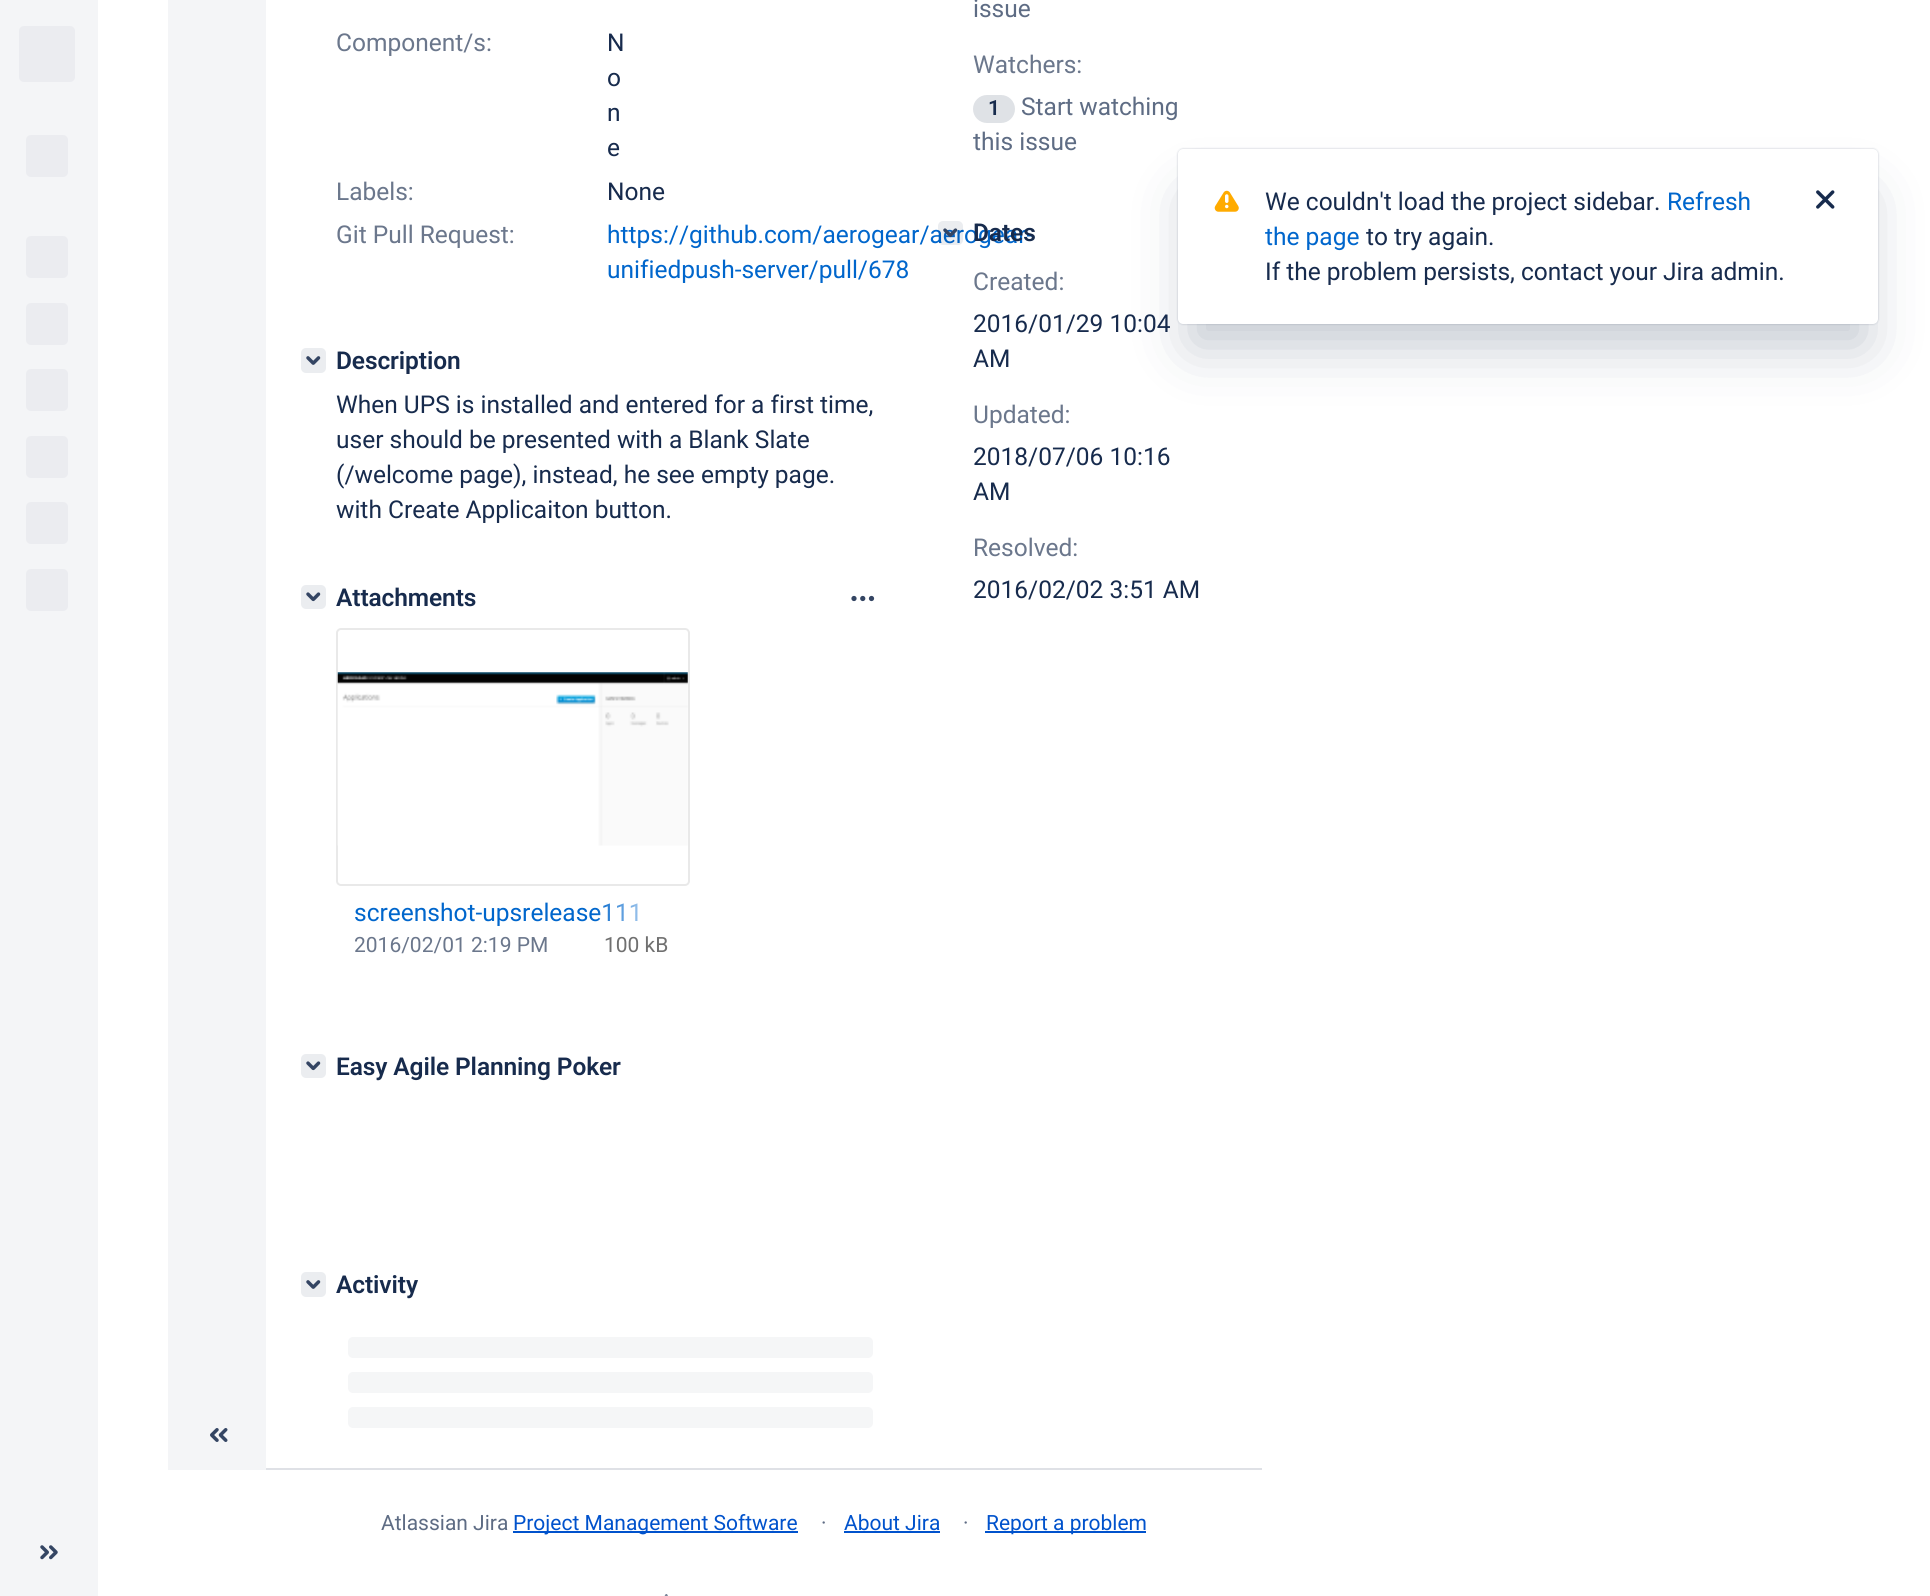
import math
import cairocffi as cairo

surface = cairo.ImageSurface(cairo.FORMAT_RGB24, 1930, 1596)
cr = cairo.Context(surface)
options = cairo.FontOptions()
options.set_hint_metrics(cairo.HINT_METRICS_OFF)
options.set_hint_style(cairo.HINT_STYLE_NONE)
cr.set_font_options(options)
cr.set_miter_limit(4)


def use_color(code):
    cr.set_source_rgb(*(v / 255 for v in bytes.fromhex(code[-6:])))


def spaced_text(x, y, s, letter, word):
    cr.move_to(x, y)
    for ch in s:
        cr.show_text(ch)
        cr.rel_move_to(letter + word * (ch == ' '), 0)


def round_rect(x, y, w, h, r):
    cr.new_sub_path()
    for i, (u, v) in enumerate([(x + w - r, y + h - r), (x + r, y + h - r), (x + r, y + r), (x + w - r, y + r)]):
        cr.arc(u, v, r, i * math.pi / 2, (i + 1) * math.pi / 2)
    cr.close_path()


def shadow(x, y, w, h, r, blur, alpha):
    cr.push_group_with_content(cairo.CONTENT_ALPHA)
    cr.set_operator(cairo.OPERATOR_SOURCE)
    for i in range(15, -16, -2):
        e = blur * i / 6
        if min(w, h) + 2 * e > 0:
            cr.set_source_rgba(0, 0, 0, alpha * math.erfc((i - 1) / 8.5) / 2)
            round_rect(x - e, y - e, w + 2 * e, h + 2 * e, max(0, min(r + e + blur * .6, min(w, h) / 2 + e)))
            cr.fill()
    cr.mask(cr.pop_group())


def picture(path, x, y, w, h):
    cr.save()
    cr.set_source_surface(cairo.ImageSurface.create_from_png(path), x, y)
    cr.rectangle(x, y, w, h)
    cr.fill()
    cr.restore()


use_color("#ffffff")
cr.paint()
use_color("#f4f5f7")
cr.rectangle(0, 0, 98, 1596)
cr.fill()
use_color("#ebecf0")
round_rect(19, 26, 56, 56, 5)
cr.fill()
round_rect(26, 135, 42, 42, 5)
cr.fill()
round_rect(26, 236, 42, 42, 5)
cr.fill()
round_rect(26, 303, 42, 42, 5)
cr.fill()
round_rect(26, 369, 42, 42, 5)
cr.fill()
round_rect(26, 436, 42, 42, 5)
cr.fill()
round_rect(26, 502, 42, 42, 5)
cr.fill()
round_rect(26, 569, 42, 42, 5)
cr.fill()
picture("img1.png", 40, 1545, 18, 15)
use_color("#f4f5f7")
cr.rectangle(168, 0, 98, 1470)
cr.fill()
picture("img2.png", 210, 1428, 18, 14)
use_color("#dfe1e6")
cr.rectangle(266, 1468, 996, 2)
cr.fill()
cr.select_font_face("Roboto")
cr.set_font_size(24.5)
use_color("#6b778c")
cr.move_to(336, 51)
cr.show_text("Component/s:")
use_color("#172b4d")
cr.move_to(607, 51)
cr.show_text("N")
cr.move_to(607, 86)
cr.show_text("o")
cr.move_to(607, 121)
cr.show_text("n")
cr.move_to(607, 156)
cr.show_text("e")
use_color("#6b778c")
cr.move_to(336, 200)
cr.show_text("Labels:")
use_color("#172b4d")
cr.move_to(607, 200)
cr.show_text("None")
use_color("#6b778c")
cr.move_to(336, 243)
cr.show_text("Git Pull Request:")
use_color("#0066cc")
cr.move_to(607, 243)
cr.show_text("https://github.com/aerogear/aerogear-")
cr.move_to(607, 278)
cr.show_text("unifiedpush-server/pull/678")
use_color("#ebedf0")
round_rect(301, 348, 25, 25, 5)
cr.fill()
picture("img3.png", 306, 356, 15, 9)
cr.select_font_face("Roboto SemiBold")
use_color("#172b4d")
spaced_text(336, 369, "Description", -0.1, 0)
cr.select_font_face("Roboto")
cr.move_to(336, 413)
cr.show_text("When UPS is installed and entered for a first time,")
cr.move_to(336, 448)
cr.show_text("user should be presented with a Blank Slate")
cr.move_to(336, 483)
cr.show_text("(/welcome page), instead, he see empty page.")
cr.move_to(336, 518)
cr.show_text("with Create Applicaiton button.")
use_color("#ebedf0")
round_rect(301, 585, 25, 24, 5)
cr.fill()
picture("img4.png", 306, 592, 15, 10)
cr.select_font_face("Roboto SemiBold")
use_color("#172b4d")
spaced_text(336, 606, "Attachments", -0.1, 0)
picture("img5.png", 851, 595, 24, 7)
round_rect(337, 629, 352, 256, 4)
use_color("#e9e9e9")
cr.stroke()
picture("img6.png", 337, 672, 351, 174)
cr.select_font_face("Roboto")
use_color("#0066cc")
cr.move_to(354, 921)
cr.show_text("screenshot-upsrelease111")
gradient = cairo.LinearGradient(595, 913, 669, 913)
gradient.add_color_stop_rgba(0, 1, 1, 1, 0)
gradient.add_color_stop_rgba(1, 1, 1, 1, 1)
cr.set_source(gradient)
cr.rectangle(597, 903, 41, 18)
cr.fill()
cr.set_font_size(21)
use_color("#6b778c")
cr.move_to(354, 952)
cr.show_text("2016/02/01 2:19 PM")
use_color("#707070")
cr.move_to(604, 952)
cr.show_text("100 kB")
use_color("#ebedf0")
round_rect(301, 1054, 25, 24, 5)
cr.fill()
picture("img4.png", 306, 1061, 15, 10)
cr.select_font_face("Roboto SemiBold")
cr.set_font_size(24.5)
use_color("#172b4d")
spaced_text(336, 1075, "Easy Agile Planning Poker", -0.1, 0)
use_color("#ebedf0")
round_rect(301, 1272, 25, 25, 5)
cr.fill()
picture("img3.png", 306, 1280, 15, 9)
use_color("#172b4d")
spaced_text(336, 1293, "Activity", -0.1, 0)
use_color("#f5f6f7")
round_rect(348, 1337, 525, 21, 5)
cr.fill()
round_rect(348, 1372, 525, 21, 5)
cr.fill()
round_rect(348, 1407, 525, 21, 5)
cr.fill()
cr.select_font_face("Roboto")
use_color("#5e6c84")
cr.move_to(973, 17)
cr.show_text("issue")
use_color("#6b778c")
cr.move_to(973, 73)
cr.show_text("Watchers:")
use_color("#dfe2e6")
round_rect(973, 95, 42, 28, 14)
cr.fill()
cr.select_font_face("Roboto SemiBold")
cr.set_font_size(21)
use_color("#172b4d")
cr.move_to(988, 115)
cr.show_text("1")
cr.select_font_face("Roboto")
cr.set_font_size(24.5)
use_color("#5e6c84")
cr.move_to(1021, 115)
cr.show_text("Start watching")
cr.move_to(973, 150)
cr.show_text("this issue")
cr.set_source_rgba(0.035, 0.118, 0.259, 0.08)
round_rect(938, 221, 25, 24, 5)
cr.fill()
picture("img7.png", 943, 228, 15, 10)
cr.select_font_face("Roboto SemiBold")
use_color("#172b4d")
spaced_text(973, 241, "Dates", -0.1, 0)
cr.select_font_face("Roboto")
use_color("#6b778c")
cr.move_to(973, 290)
cr.show_text("Created:")
use_color("#172b4d")
cr.move_to(973, 332)
cr.show_text("2016/01/29 10:04")
cr.move_to(973, 367)
cr.show_text("AM")
use_color("#6b778c")
cr.move_to(973, 423)
cr.show_text("Updated:")
use_color("#172b4d")
cr.move_to(973, 465)
cr.show_text("2018/07/06 10:16")
cr.move_to(973, 500)
cr.show_text("AM")
use_color("#6b778c")
cr.move_to(973, 556)
cr.show_text("Resolved:")
use_color("#172b4d")
cr.move_to(973, 598)
cr.show_text("2016/02/02 3:51 AM")
cr.set_font_size(21)
use_color("#5e6c84")
cr.move_to(381, 1530)
cr.show_text("Atlassian Jira")
use_color("#0052cc")
cr.rectangle(513, 1531, 285, 2)
cr.fill()
cr.move_to(513, 1530)
cr.show_text("Project Management Software")
use_color("#5e6c84")
cr.move_to(821, 1530)
cr.show_text("·")
use_color("#0052cc")
cr.move_to(844, 1530)
cr.show_text("About Jira")
cr.rectangle(844, 1531, 96, 2)
cr.fill()
use_color("#5e6c84")
cr.move_to(963, 1530)
cr.show_text("·")
use_color("#0052cc")
cr.rectangle(985, 1531, 161, 2)
cr.fill()
cr.move_to(986, 1530)
cr.show_text("Report a problem")
picture("img8.png", 664, 1594, 4, 2)
use_color("#091e42")
shadow(1178, 149, 700, 175, 5, 1, 0.25)
shadow(1192, 198, 672, 147, 0, 28, 0.25)
use_color("#ffffff")
round_rect(1178, 149, 700, 175, 5)
cr.fill()
picture("img9.png", 1214, 190, 25, 22)
cr.set_font_size(24.5)
use_color("#172b4d")
cr.move_to(1265, 210)
cr.show_text("We couldn't load the project sidebar.")
use_color("#0066cc")
cr.move_to(1667, 210)
cr.show_text("Refresh")
picture("img10.png", 1816, 190, 19, 19)
cr.move_to(1265, 245)
cr.show_text("the page")
use_color("#172b4d")
cr.move_to(1366, 245)
cr.show_text("to try again.")
cr.move_to(1265, 280)
cr.show_text("If the problem persists, contact your Jira admin.")
surface.write_to_png("result.png")
